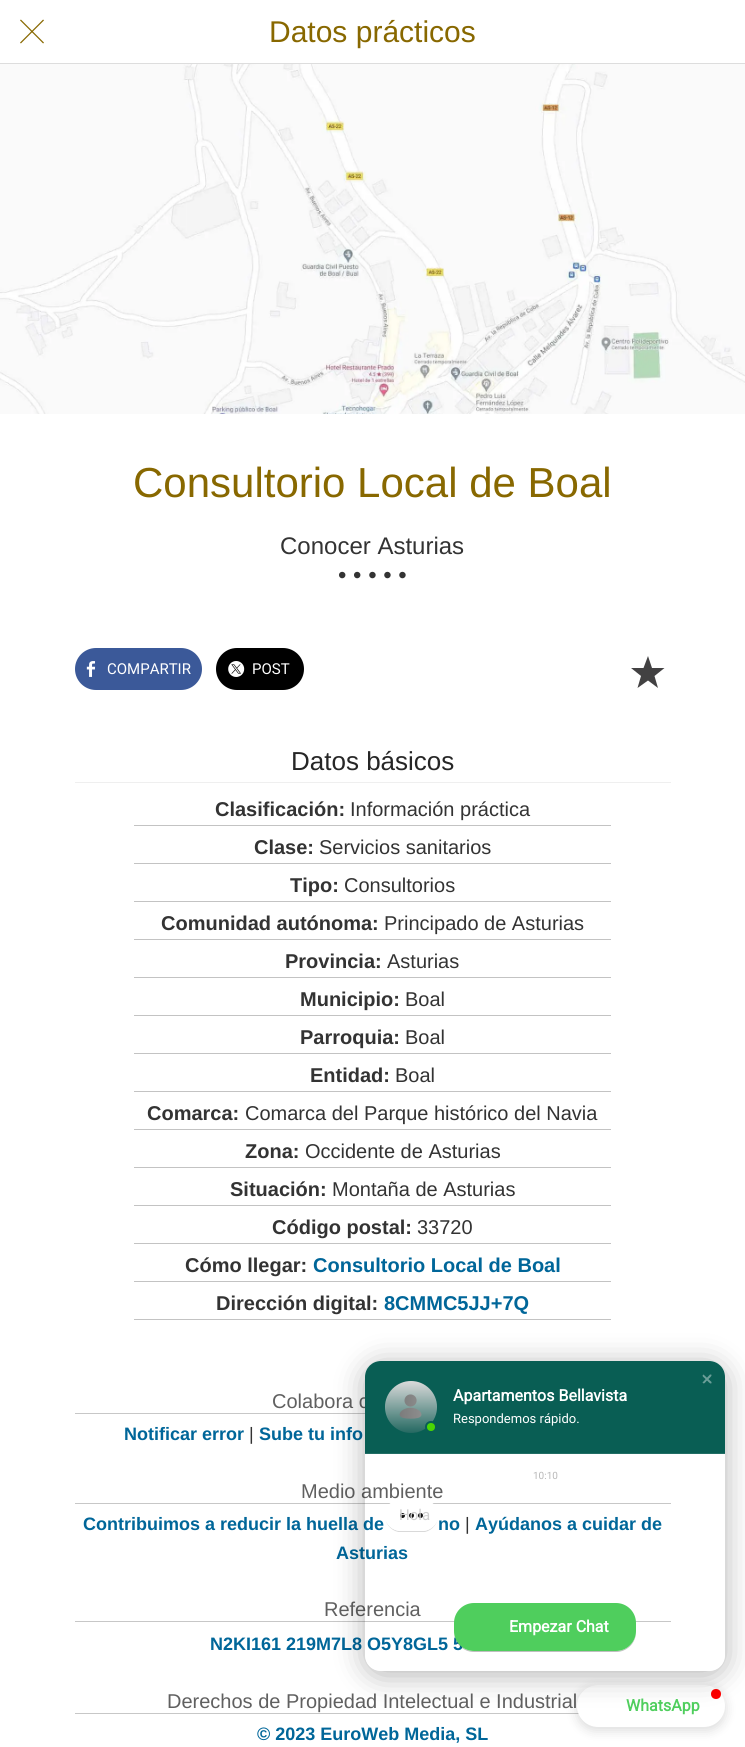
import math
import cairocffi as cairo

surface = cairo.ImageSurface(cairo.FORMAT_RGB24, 745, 1747)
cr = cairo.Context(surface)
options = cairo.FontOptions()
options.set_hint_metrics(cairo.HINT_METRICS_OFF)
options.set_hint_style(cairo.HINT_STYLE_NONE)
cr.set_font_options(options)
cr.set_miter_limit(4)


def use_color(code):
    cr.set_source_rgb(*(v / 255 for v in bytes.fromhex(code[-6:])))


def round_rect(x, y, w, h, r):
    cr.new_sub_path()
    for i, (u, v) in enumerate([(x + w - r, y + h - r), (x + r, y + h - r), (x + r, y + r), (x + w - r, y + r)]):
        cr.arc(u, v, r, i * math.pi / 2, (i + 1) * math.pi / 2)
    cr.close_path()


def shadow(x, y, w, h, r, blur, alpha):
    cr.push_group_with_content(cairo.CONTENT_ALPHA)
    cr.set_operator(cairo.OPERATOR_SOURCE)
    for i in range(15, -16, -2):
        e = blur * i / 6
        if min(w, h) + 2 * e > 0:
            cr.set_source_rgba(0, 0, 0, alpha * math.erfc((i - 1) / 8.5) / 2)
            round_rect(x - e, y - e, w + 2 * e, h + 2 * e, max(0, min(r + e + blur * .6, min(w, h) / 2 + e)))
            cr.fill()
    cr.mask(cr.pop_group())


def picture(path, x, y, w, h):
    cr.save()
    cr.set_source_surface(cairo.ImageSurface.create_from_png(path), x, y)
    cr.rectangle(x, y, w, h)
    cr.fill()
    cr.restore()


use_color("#ffffff")
cr.paint()
use_color("#dddddd")
cr.rectangle(0, 63, 745, 1)
cr.fill()
picture("img1.png", 20, 19, 24, 25)
cr.select_font_face("Liberation Sans")
cr.set_font_size(30)
use_color("#886800")
cr.move_to(269, 42)
cr.show_text("Datos prácticos")
picture("img2.png", 0, 64, 745, 350)
cr.set_font_size(42)
cr.move_to(133, 497)
cr.show_text("Consultorio Local de Boal")
cr.set_font_size(24)
use_color("#333333")
cr.move_to(280, 554)
cr.show_text("Conocer Asturias")
cr.move_to(338, 583)
cr.show_text("• • • • •")
use_color("#3b5999")
round_rect(75, 648, 127, 42, 21)
cr.fill()
picture("img3.png", 86, 661, 10, 16)
cr.select_font_face("Roboto")
cr.set_font_size(15)
use_color("#ffffff")
cr.move_to(107, 674)
cr.show_text("COMPARTIR")
use_color("#000000")
round_rect(216, 648, 88, 42, 21)
cr.fill()
picture("img4.png", 228, 661, 17, 16)
use_color("#ffffff")
cr.move_to(252, 674)
cr.show_text("POST")
use_color("#424142")
cr.new_path()
cr.move_to(664.5, 668)
cr.line_to(652, 668)
cr.line_to(648, 656)
cr.line_to(643.5, 668)
cr.line_to(631, 668)
cr.line_to(641, 676)
cr.line_to(637.5, 688)
cr.line_to(648, 680.5)
cr.line_to(658, 688)
cr.line_to(654.5, 676)
cr.close_path()
cr.fill()
use_color("#efefef")
cr.rectangle(75, 782, 596, 1)
cr.fill()
cr.select_font_face("Liberation Sans")
cr.set_font_size(26)
use_color("#262626")
cr.move_to(291, 770)
cr.show_text("Datos básicos")
use_color("#c3c3c3")
cr.rectangle(134, 825, 477, 1)
cr.fill()
cr.select_font_face("Liberation Sans", cairo.FONT_SLANT_NORMAL, cairo.FONT_WEIGHT_BOLD)
cr.set_font_size(20)
use_color("#333333")
cr.move_to(215, 816)
cr.show_text("Clasificación:")
cr.select_font_face("Liberation Sans")
cr.move_to(350, 816)
cr.show_text("Información práctica")
use_color("#c3c3c3")
cr.rectangle(134, 863, 477, 1)
cr.fill()
cr.select_font_face("Liberation Sans", cairo.FONT_SLANT_NORMAL, cairo.FONT_WEIGHT_BOLD)
use_color("#333333")
cr.move_to(254, 854)
cr.show_text("Clase:")
cr.select_font_face("Liberation Sans")
cr.move_to(319, 854)
cr.show_text("Servicios sanitarios")
use_color("#c3c3c3")
cr.rectangle(134, 901, 477, 1)
cr.fill()
cr.select_font_face("Liberation Sans", cairo.FONT_SLANT_NORMAL, cairo.FONT_WEIGHT_BOLD)
use_color("#333333")
cr.move_to(290, 892)
cr.show_text("Tipo:")
cr.select_font_face("Liberation Sans")
cr.move_to(344, 892)
cr.show_text("Consultorios")
use_color("#c3c3c3")
cr.rectangle(134, 939, 477, 1)
cr.fill()
cr.select_font_face("Liberation Sans", cairo.FONT_SLANT_NORMAL, cairo.FONT_WEIGHT_BOLD)
use_color("#333333")
cr.move_to(161, 930)
cr.show_text("Comunidad autónoma:")
cr.select_font_face("Liberation Sans")
cr.move_to(384, 930)
cr.show_text("Principado de Asturias")
use_color("#c3c3c3")
cr.rectangle(134, 977, 477, 1)
cr.fill()
cr.select_font_face("Liberation Sans", cairo.FONT_SLANT_NORMAL, cairo.FONT_WEIGHT_BOLD)
use_color("#333333")
cr.move_to(285, 968)
cr.show_text("Provincia:")
cr.select_font_face("Liberation Sans")
cr.move_to(387, 968)
cr.show_text("Asturias")
use_color("#c3c3c3")
cr.rectangle(134, 1015, 477, 1)
cr.fill()
cr.select_font_face("Liberation Sans", cairo.FONT_SLANT_NORMAL, cairo.FONT_WEIGHT_BOLD)
use_color("#333333")
cr.move_to(300, 1006)
cr.show_text("Municipio:")
cr.select_font_face("Liberation Sans")
cr.move_to(405, 1006)
cr.show_text("Boal")
use_color("#c3c3c3")
cr.rectangle(134, 1053, 477, 1)
cr.fill()
cr.select_font_face("Liberation Sans", cairo.FONT_SLANT_NORMAL, cairo.FONT_WEIGHT_BOLD)
use_color("#333333")
cr.move_to(300, 1044)
cr.show_text("Parroquia:")
cr.select_font_face("Liberation Sans")
cr.move_to(405, 1044)
cr.show_text("Boal")
use_color("#c3c3c3")
cr.rectangle(134, 1091, 477, 1)
cr.fill()
cr.select_font_face("Liberation Sans", cairo.FONT_SLANT_NORMAL, cairo.FONT_WEIGHT_BOLD)
use_color("#333333")
cr.move_to(310, 1082)
cr.show_text("Entidad:")
cr.select_font_face("Liberation Sans")
cr.move_to(395, 1082)
cr.show_text("Boal")
use_color("#c3c3c3")
cr.rectangle(134, 1129, 477, 1)
cr.fill()
cr.select_font_face("Liberation Sans", cairo.FONT_SLANT_NORMAL, cairo.FONT_WEIGHT_BOLD)
use_color("#333333")
cr.move_to(147, 1120)
cr.show_text("Comarca:")
cr.select_font_face("Liberation Sans")
cr.move_to(245, 1120)
cr.show_text("Comarca del Parque histórico del Navia")
use_color("#c3c3c3")
cr.rectangle(134, 1167, 477, 1)
cr.fill()
cr.select_font_face("Liberation Sans", cairo.FONT_SLANT_NORMAL, cairo.FONT_WEIGHT_BOLD)
use_color("#333333")
cr.move_to(245, 1158)
cr.show_text("Zona:")
cr.select_font_face("Liberation Sans")
cr.move_to(305, 1158)
cr.show_text("Occidente de Asturias")
use_color("#c3c3c3")
cr.rectangle(134, 1205, 477, 1)
cr.fill()
cr.select_font_face("Liberation Sans", cairo.FONT_SLANT_NORMAL, cairo.FONT_WEIGHT_BOLD)
use_color("#333333")
cr.move_to(230, 1196)
cr.show_text("Situación:")
cr.select_font_face("Liberation Sans")
cr.move_to(332, 1196)
cr.show_text("Montaña de Asturias")
use_color("#c3c3c3")
cr.rectangle(134, 1243, 477, 1)
cr.fill()
cr.select_font_face("Liberation Sans", cairo.FONT_SLANT_NORMAL, cairo.FONT_WEIGHT_BOLD)
use_color("#333333")
cr.move_to(272, 1234)
cr.show_text("Código postal:")
cr.select_font_face("Liberation Sans")
cr.move_to(417, 1234)
cr.show_text("33720")
use_color("#c3c3c3")
cr.rectangle(134, 1281, 477, 1)
cr.fill()
cr.select_font_face("Liberation Sans", cairo.FONT_SLANT_NORMAL, cairo.FONT_WEIGHT_BOLD)
use_color("#333333")
cr.move_to(185, 1272)
cr.show_text("Cómo llegar:")
use_color("#006699")
cr.move_to(313, 1272)
cr.show_text("Consultorio Local de Boal")
use_color("#c3c3c3")
cr.rectangle(134, 1319, 477, 1)
cr.fill()
use_color("#333333")
cr.move_to(216, 1310)
cr.show_text("Dirección digital:")
use_color("#006699")
cr.move_to(384, 1310)
cr.show_text("8CMMC5JJ+7Q")
use_color("#c7c7c7")
cr.rectangle(75, 1413, 290, 1)
cr.fill()
cr.select_font_face("Liberation Sans")
use_color("#606060")
cr.move_to(272, 1408)
cr.show_text("Colabora c")
cr.select_font_face("Liberation Sans", cairo.FONT_SLANT_NORMAL, cairo.FONT_WEIGHT_BOLD)
cr.set_font_size(18)
use_color("#006699")
cr.move_to(124, 1440)
cr.show_text("Notificar error")
cr.select_font_face("Liberation Sans")
use_color("#333333")
cr.move_to(249, 1440)
cr.show_text("|")
cr.select_font_face("Liberation Sans", cairo.FONT_SLANT_NORMAL, cairo.FONT_WEIGHT_BOLD)
use_color("#006699")
cr.move_to(259, 1440)
cr.show_text("Sube tu info")
use_color("#c7c7c7")
cr.rectangle(75, 1503, 596, 1)
cr.fill()
cr.select_font_face("Liberation Sans")
cr.set_font_size(20)
use_color("#606060")
cr.move_to(301, 1498)
cr.show_text("Medio ambiente")
cr.select_font_face("Liberation Sans", cairo.FONT_SLANT_NORMAL, cairo.FONT_WEIGHT_BOLD)
cr.set_font_size(18)
use_color("#006699")
cr.move_to(83, 1530)
cr.show_text("Contribuimos a reducir la huella de")
cr.move_to(438, 1530)
cr.show_text("no")
cr.select_font_face("Liberation Sans")
use_color("#333333")
cr.move_to(465, 1530)
cr.show_text("|")
cr.select_font_face("Liberation Sans", cairo.FONT_SLANT_NORMAL, cairo.FONT_WEIGHT_BOLD)
use_color("#006699")
cr.move_to(475, 1530)
cr.show_text("Ayúdanos a cuidar de")
cr.move_to(336, 1559)
cr.show_text("Asturias")
use_color("#c7c7c7")
cr.rectangle(75, 1621, 596, 1)
cr.fill()
cr.select_font_face("Liberation Sans")
cr.set_font_size(20)
use_color("#606060")
cr.move_to(324, 1616)
cr.show_text("Referencia")
cr.select_font_face("Liberation Sans", cairo.FONT_SLANT_NORMAL, cairo.FONT_WEIGHT_BOLD)
cr.set_font_size(18)
use_color("#006699")
cr.move_to(210, 1650)
cr.show_text("N2KI161 219M7L8 O5Y8GL5 5")
use_color("#c7c7c7")
cr.rectangle(75, 1713, 504, 1)
cr.fill()
cr.select_font_face("Liberation Sans")
cr.set_font_size(20)
use_color("#606060")
cr.move_to(167, 1708)
cr.show_text("Derechos de Propiedad Intelectual e Industrial")
cr.select_font_face("Liberation Sans", cairo.FONT_SLANT_NORMAL, cairo.FONT_WEIGHT_BOLD)
cr.set_font_size(18)
use_color("#006699")
cr.move_to(257, 1740)
cr.show_text("© 2023 EuroWeb Media, SL")
use_color("#000000")
shadow(577, 1688, 148, 42, 21, 6, 0.15)
use_color("#ffffff")
round_rect(577, 1685, 148, 42, 21)
cr.fill()
use_color("#ff0000")
cr.arc(716, 1694, 5, 0, 2 * math.pi)
cr.fill()
cr.save()
cr.set_fill_rule(cairo.FILL_RULE_EVEN_ODD)
cr.new_path()
cr.move_to(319, 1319)
cr.line_to(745, 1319)
cr.line_to(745, 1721)
cr.line_to(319, 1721)
cr.close_path()
cr.move_to(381, 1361)
cr.line_to(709, 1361)
cr.curve_to(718, 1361, 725, 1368, 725, 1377)
cr.line_to(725, 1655)
cr.curve_to(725, 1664, 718, 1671, 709, 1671)
cr.line_to(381, 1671)
cr.curve_to(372, 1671, 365, 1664, 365, 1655)
cr.line_to(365, 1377)
cr.curve_to(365, 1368, 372, 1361, 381, 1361)
cr.close_path()
cr.clip()
use_color("#000000")
shadow(365, 1365, 360, 310, 16, 15, 0.3)
cr.restore()
use_color("#095e54")
cr.new_path()
cr.move_to(381, 1361)
cr.line_to(709, 1361)
cr.curve_to(718, 1361, 725, 1368, 725, 1377)
cr.line_to(725, 1454)
cr.line_to(365, 1454)
cr.line_to(365, 1377)
cr.curve_to(365, 1368, 372, 1361, 381, 1361)
cr.close_path()
cr.fill()
use_color("#6b9e98")
cr.new_path()
cr.move_to(704, 1375)
cr.line_to(711.5, 1382)
cr.line_to(711.5, 1383)
cr.curve_to(711, 1384.5, 709, 1382.5, 708.5, 1382)
cr.line_to(705, 1378.5)
cr.curve_to(704.5, 1378, 701.5, 1376, 703, 1375)
cr.curve_to(703, 1374.5, 704, 1374.5, 704, 1375)
cr.close_path()
cr.fill()
cr.new_path()
cr.move_to(703, 1382)
cr.line_to(710, 1374.5)
cr.line_to(711, 1374.5)
cr.curve_to(712.5, 1375, 710.5, 1377, 710, 1377.5)
cr.line_to(706.5, 1381)
cr.curve_to(706, 1381.5, 704, 1384.5, 703, 1383)
cr.curve_to(702.5, 1383, 702.5, 1382, 703, 1382)
cr.close_path()
cr.fill()
use_color("#226e65")
cr.rectangle(365, 1453, 360, 1)
cr.fill()
gradient = cairo.LinearGradient(411, 1381, 411, 1433)
gradient.add_color_stop_rgba(0, 0.898, 0.898, 0.898, 1)
gradient.add_color_stop_rgba(1, 0.149, 0.431, 0.4, 1)
cr.set_source(gradient)
cr.arc(411, 1407, 26, 0, 2 * math.pi)
cr.fill()
picture("img5.png", 399, 1394, 23, 25)
cr.set_source_rgba(0.067, 0.067, 0.067, 0.05)
cr.new_path()
cr.move_to(411, 1381)
cr.curve_to(445, 1381, 445, 1433, 411, 1433)
cr.curve_to(377, 1433, 377, 1381, 411, 1381)
cr.close_path()
cr.fill()
use_color("#4ad504")
cr.arc(431, 1427, 5, 0, 2 * math.pi)
cr.fill_preserve()
use_color("#095e54")
cr.stroke()
cr.select_font_face("Roboto", cairo.FONT_SLANT_NORMAL, cairo.FONT_WEIGHT_BOLD)
cr.set_font_size(16)
use_color("#ffffff")
cr.move_to(453, 1401)
cr.show_text("Apartamentos Bellavista")
cr.select_font_face("Roboto")
cr.set_font_size(13)
cr.move_to(453, 1423)
cr.show_text("Respondemos rápido.")
cr.set_font_size(10)
use_color("#b8b8b8")
cr.move_to(533, 1479)
cr.show_text("10:10")
cr.set_source_rgba(0, 0, 0, 0.15)
cr.new_path()
cr.move_to(385, 1516)
cr.curve_to(385, 1523, 390, 1530, 398, 1532)
cr.line_to(425, 1532)
cr.curve_to(433, 1530, 438, 1523, 438, 1516)
cr.curve_to(438, 1524, 431, 1531, 422, 1531)
cr.line_to(401, 1531)
cr.curve_to(392, 1531, 385, 1524, 385, 1516)
cr.close_path()
cr.fill()
use_color("#ffffff")
round_rect(385, 1499, 53, 32, 16)
cr.fill()
use_color("#111111")
cr.arc(402.5, 1515.5, 2.5, 0, 2 * math.pi)
cr.fill()
cr.arc(411.5, 1515.5, 2.5, 0, 2 * math.pi)
cr.fill()
cr.arc(420.5, 1515.5, 2.5, 0, 2 * math.pi)
cr.fill()
use_color("#ffffff")
cr.new_path()
cr.move_to(385, 1555)
cr.curve_to(385, 1578, 413, 1572, 427, 1572)
cr.line_to(532, 1572)
cr.curve_to(546, 1572, 574, 1578, 574, 1555)
cr.curve_to(574, 1564, 567, 1571, 558, 1571)
cr.line_to(401, 1571)
cr.curve_to(392, 1571, 385, 1564, 385, 1555)
cr.close_path()
cr.fill()
cr.set_font_size(15)
use_color("#cfcfcf")
cr.move_to(399, 1520)
cr.show_text("Hola")
cr.set_source_rgba(0, 0, 0, 0.25)
cr.new_path()
cr.move_to(454, 1631)
cr.line_to(454, 1632)
cr.curve_to(454, 1643, 463, 1652, 474, 1652)
cr.line_to(616, 1652)
cr.curve_to(627, 1652, 636, 1643, 636, 1632)
cr.line_to(636, 1631)
cr.curve_to(636, 1642, 627, 1651, 616, 1651)
cr.line_to(474, 1651)
cr.curve_to(463, 1651, 454, 1642, 454, 1631)
cr.close_path()
cr.fill()
use_color("#4fce5d")
round_rect(454, 1603, 182, 48, 20)
cr.fill()
cr.select_font_face("Roboto", cairo.FONT_SLANT_NORMAL, cairo.FONT_WEIGHT_BOLD)
cr.set_font_size(16)
use_color("#ffffff")
cr.move_to(509, 1632)
cr.show_text("Empezar Chat")
use_color("#4fce5d")
cr.move_to(626, 1711)
cr.show_text("WhatsApp")
surface.write_to_png("result.png")
